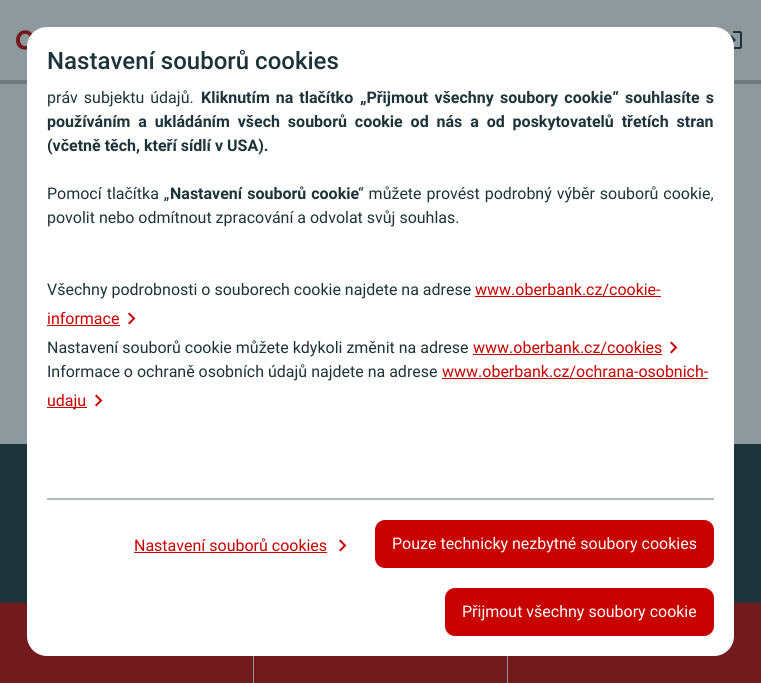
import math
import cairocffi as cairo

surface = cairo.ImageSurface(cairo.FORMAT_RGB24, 761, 683)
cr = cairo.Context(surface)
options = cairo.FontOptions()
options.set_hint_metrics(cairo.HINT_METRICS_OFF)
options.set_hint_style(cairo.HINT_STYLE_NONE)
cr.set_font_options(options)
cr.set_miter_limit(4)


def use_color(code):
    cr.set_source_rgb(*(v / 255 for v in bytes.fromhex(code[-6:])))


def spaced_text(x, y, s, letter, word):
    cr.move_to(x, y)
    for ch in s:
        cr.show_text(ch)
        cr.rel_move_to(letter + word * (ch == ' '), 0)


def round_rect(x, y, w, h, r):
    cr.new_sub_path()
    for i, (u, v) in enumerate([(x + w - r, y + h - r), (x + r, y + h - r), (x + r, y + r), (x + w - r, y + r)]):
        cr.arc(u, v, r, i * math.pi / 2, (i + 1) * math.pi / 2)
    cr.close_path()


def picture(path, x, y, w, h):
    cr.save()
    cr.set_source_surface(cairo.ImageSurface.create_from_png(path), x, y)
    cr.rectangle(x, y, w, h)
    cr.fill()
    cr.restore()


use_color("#8e999d")
cr.paint()
cr.set_source_rgba(0.055, 0.102, 0.114, 0.25)
cr.rectangle(0, 80, 761, 4)
cr.fill()
picture("img1.png", 16, 29, 23, 21)
picture("img2.png", 730, 31, 12, 18)
use_color("#1c333a")
cr.rectangle(0, 444, 761, 159)
cr.fill()
use_color("#731a1d")
cr.rectangle(0, 603, 253, 80)
cr.fill()
cr.rectangle(508, 603, 253, 80)
cr.fill()
use_color("#ffffff")
round_rect(27, 27, 707, 629, 20)
cr.fill()
cr.select_font_face("Roboto Medium")
cr.set_font_size(24)
use_color("#1c333a")
cr.move_to(47, 69)
cr.show_text("Nastavení souborů cookies")
cr.select_font_face("Roboto")
cr.set_font_size(16)
spaced_text(47, 103, "práv subjektu údajů.", 0, 2)
cr.select_font_face("Roboto", cairo.FONT_SLANT_NORMAL, cairo.FONT_WEIGHT_BOLD)
spaced_text(201, 103, "Kliknutím na tlačítko", 0, 2)
spaced_text(360, 103, "„Přijmout všechny soubory cookie“ souhlasíte s", 0, 2.25)
spaced_text(47, 127, "používáním a ukládáním všech souborů cookie od nás a od poskytovatelů třetích stran", 0, 3.9)
cr.move_to(47, 151)
cr.show_text("(včetně těch, kteří sídlí v USA).")
cr.select_font_face("Roboto")
spaced_text(47, 199, "Pomocí tlačítka „", 0, 1)
cr.select_font_face("Roboto", cairo.FONT_SLANT_NORMAL, cairo.FONT_WEIGHT_BOLD)
spaced_text(170, 199, "Nastavení souborů cookie", 0, 1)
cr.select_font_face("Roboto")
spaced_text(358, 199, "“ můžete provést podrobný výběr souborů cookie,", 0, 1)
cr.move_to(47, 223)
cr.show_text("povolit nebo odmítnout zpracování a odvolat svůj souhlas.")
cr.move_to(47, 295)
cr.show_text("Všechny podrobnosti o souborech cookie najdete na adrese")
use_color("#c90000")
cr.move_to(475, 295)
cr.show_text("www.oberbank.cz/cookie-")
cr.rectangle(475, 296, 186, 1)
cr.fill()
cr.move_to(47, 324)
cr.show_text("informace")
cr.rectangle(47, 325, 73, 1)
cr.fill()
picture("img3.png", 128, 312, 8, 13)
use_color("#1c333a")
cr.move_to(47, 353)
cr.show_text("Nastavení souborů cookie můžete kdykoli změnit na adrese")
use_color("#c90000")
cr.move_to(473, 353)
cr.show_text("www.oberbank.cz/cookies")
cr.rectangle(473, 354, 189, 1)
cr.fill()
picture("img3.png", 670, 341, 8, 13)
use_color("#1c333a")
cr.move_to(47, 377)
cr.show_text("Informace o ochraně osobních údajů najdete na adrese")
use_color("#c90000")
cr.move_to(442, 377)
cr.show_text("www.oberbank.cz/ochrana-osobnich-")
cr.rectangle(442, 378, 266, 1)
cr.fill()
cr.rectangle(47, 407, 40, 1)
cr.fill()
cr.move_to(47, 406)
cr.show_text("udaju")
picture("img3.png", 95, 394, 8, 13)
use_color("#b2babc")
cr.rectangle(47, 498, 667, 2)
cr.fill()
use_color("#c90000")
cr.move_to(134, 551)
cr.show_text("Nastavení souborů cookies")
cr.rectangle(134, 552, 193, 1)
cr.fill()
picture("img3.png", 339, 539, 8, 13)
round_rect(375, 520, 339, 48, 10)
cr.fill()
use_color("#ffffff")
cr.move_to(392, 549)
cr.show_text("Pouze technicky nezbytné soubory cookies")
use_color("#c90000")
round_rect(445, 588, 269, 48, 10)
cr.fill()
use_color("#ffffff")
cr.move_to(462, 617)
cr.show_text("Přijmout všechny soubory cookie")
use_color("#731a1d")
cr.rectangle(254, 656, 253, 27)
cr.fill()
surface.write_to_png("result.png")
